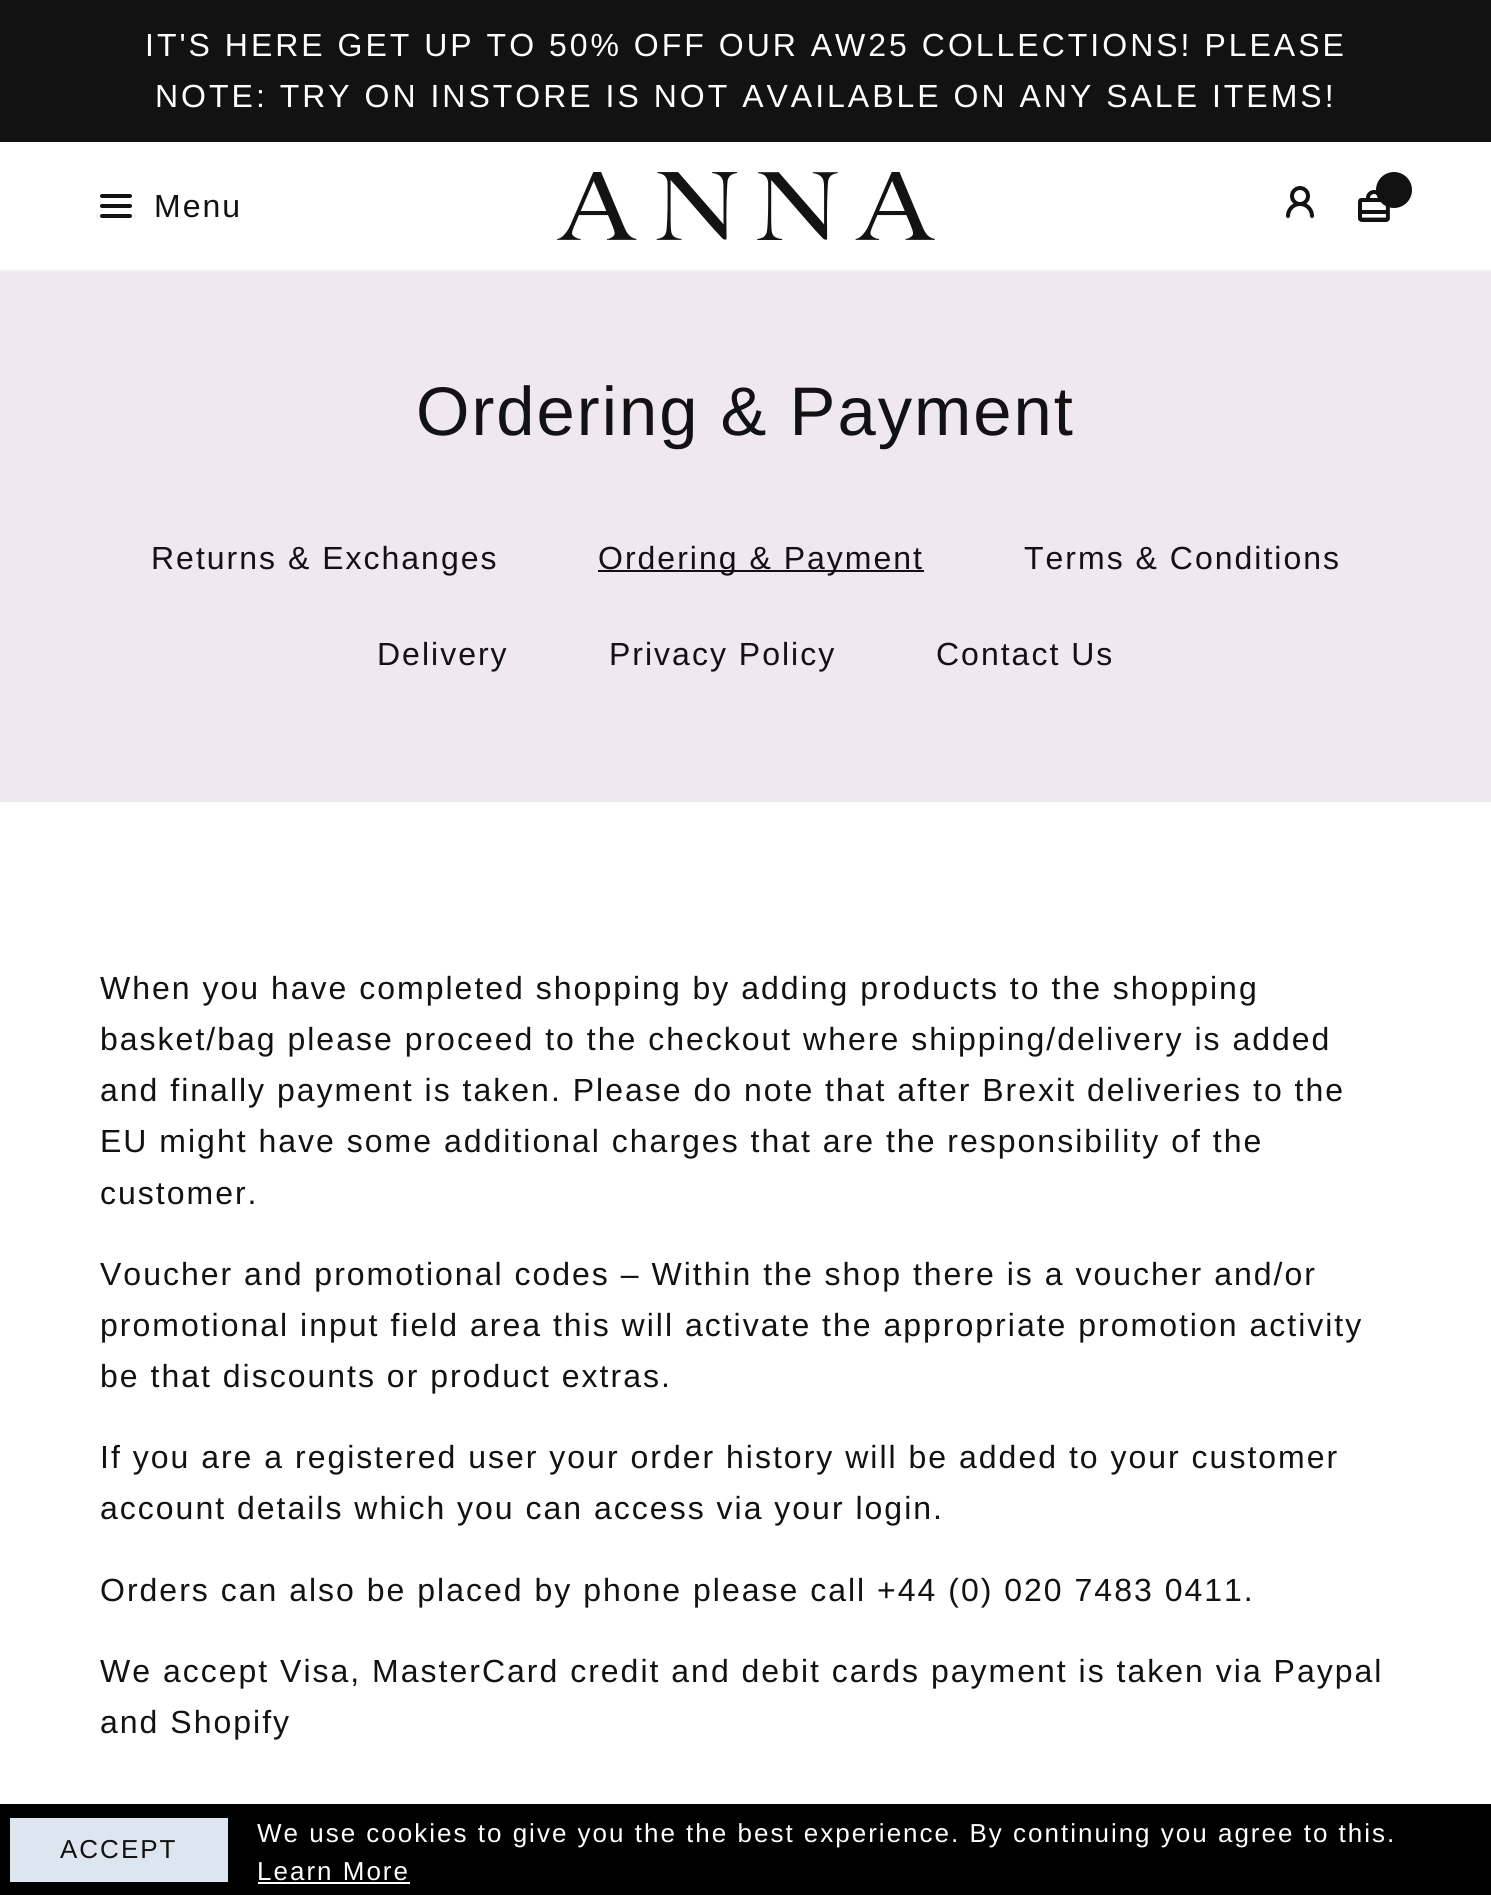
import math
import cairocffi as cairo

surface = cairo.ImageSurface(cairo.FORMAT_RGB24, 1491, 1895)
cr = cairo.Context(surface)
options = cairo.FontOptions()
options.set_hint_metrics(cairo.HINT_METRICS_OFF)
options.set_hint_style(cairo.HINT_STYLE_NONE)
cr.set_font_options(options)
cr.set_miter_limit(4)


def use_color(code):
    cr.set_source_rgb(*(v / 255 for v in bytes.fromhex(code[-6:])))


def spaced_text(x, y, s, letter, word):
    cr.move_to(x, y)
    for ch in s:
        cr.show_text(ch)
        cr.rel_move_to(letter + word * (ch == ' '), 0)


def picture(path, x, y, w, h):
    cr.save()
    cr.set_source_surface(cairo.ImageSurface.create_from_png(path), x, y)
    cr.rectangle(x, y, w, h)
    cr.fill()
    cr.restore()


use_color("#ffffff")
cr.paint()
use_color("#121212")
cr.rectangle(0, 0, 1491, 142)
cr.fill()
cr.select_font_face("Liberation Sans")
cr.set_font_size(32)
use_color("#ffffff")
spaced_text(145, 56, "IT'S HERE GET UP TO 50% OFF OUR AW25 COLLECTIONS! PLEASE", 3, 0)
spaced_text(155, 107, "NOTE: TRY ON INSTORE IS NOT AVAILABLE ON ANY SALE ITEMS!", 3, 0)
use_color("#f2f2f2")
cr.rectangle(0, 270, 1491, 2)
cr.fill()
picture("img1.png", 100, 194, 32, 24)
use_color("#121212")
spaced_text(154, 217, "Menu", 2, 0)
picture("img2.png", 557, 172, 378, 68)
picture("img3.png", 1286, 186, 28, 32)
cr.arc(1394, 190, 18, 0, 2 * math.pi)
cr.fill()
picture("img4.png", 1358, 190, 32, 32)
use_color("#efe8ef")
cr.rectangle(0, 272, 1491, 530)
cr.fill()
cr.set_font_size(68.75)
use_color("#121212")
spaced_text(416, 435, "Ordering & Payment", 2, 0)
cr.set_font_size(32)
spaced_text(151, 569, "Returns & Exchanges", 2, 0)
cr.rectangle(598, 570, 326, 2)
cr.fill()
spaced_text(598, 569, "Ordering & Payment", 2, 0)
spaced_text(1024, 569, "Terms & Conditions", 2, 0)
spaced_text(377, 665, "Delivery", 2, 0)
spaced_text(609, 665, "Privacy Policy", 2, 0)
spaced_text(936, 665, "Contact Us", 2, 0)
spaced_text(100, 999, "When you have completed shopping by adding products to the shopping", 2, 0)
spaced_text(100, 1050, "basket/bag please proceed to the checkout where shipping/delivery is added", 2, 0)
spaced_text(100, 1101, "and finally payment is taken. Please do note that after Brexit deliveries to the", 2, 0)
spaced_text(100, 1152, "EU might have some additional charges that are the responsibility of the", 2, 0)
spaced_text(100, 1204, "customer.", 2, 0)
spaced_text(100, 1285, "Voucher and promotional codes – Within the shop there is a voucher and/or", 2, 0)
spaced_text(100, 1336, "promotional input field area this will activate the appropriate promotion activity", 2, 0)
spaced_text(100, 1387, "be that discounts or product extras.", 2, 0)
spaced_text(100, 1468, "If you are a registered user your order history will be added to your customer", 2, 0)
spaced_text(100, 1519, "account details which you can access via your login.", 2, 0)
spaced_text(100, 1601, "Orders can also be placed by phone please call +44 (0) 020 7483 0411.", 2, 0)
spaced_text(100, 1682, "We accept Visa, MasterCard credit and debit cards payment is taken via Paypal", 2, 0)
spaced_text(100, 1733, "and Shopify", 2, 0)
use_color("#000000")
cr.rectangle(0, 1804, 1491, 91)
cr.fill()
use_color("#dde6ef")
cr.rectangle(10, 1818, 218, 64)
cr.fill()
cr.set_font_size(26)
use_color("#121212")
spaced_text(60, 1858, "ACCEPT", 2, 0)
use_color("#ffffff")
spaced_text(257, 1842, "We use cookies to give you the the best experience. By continuing you agree to this.", 2, 0)
spaced_text(257, 1880, "Learn More", 2, 0)
cr.rectangle(258, 1882, 152, 2)
cr.fill()
surface.write_to_png("result.png")
